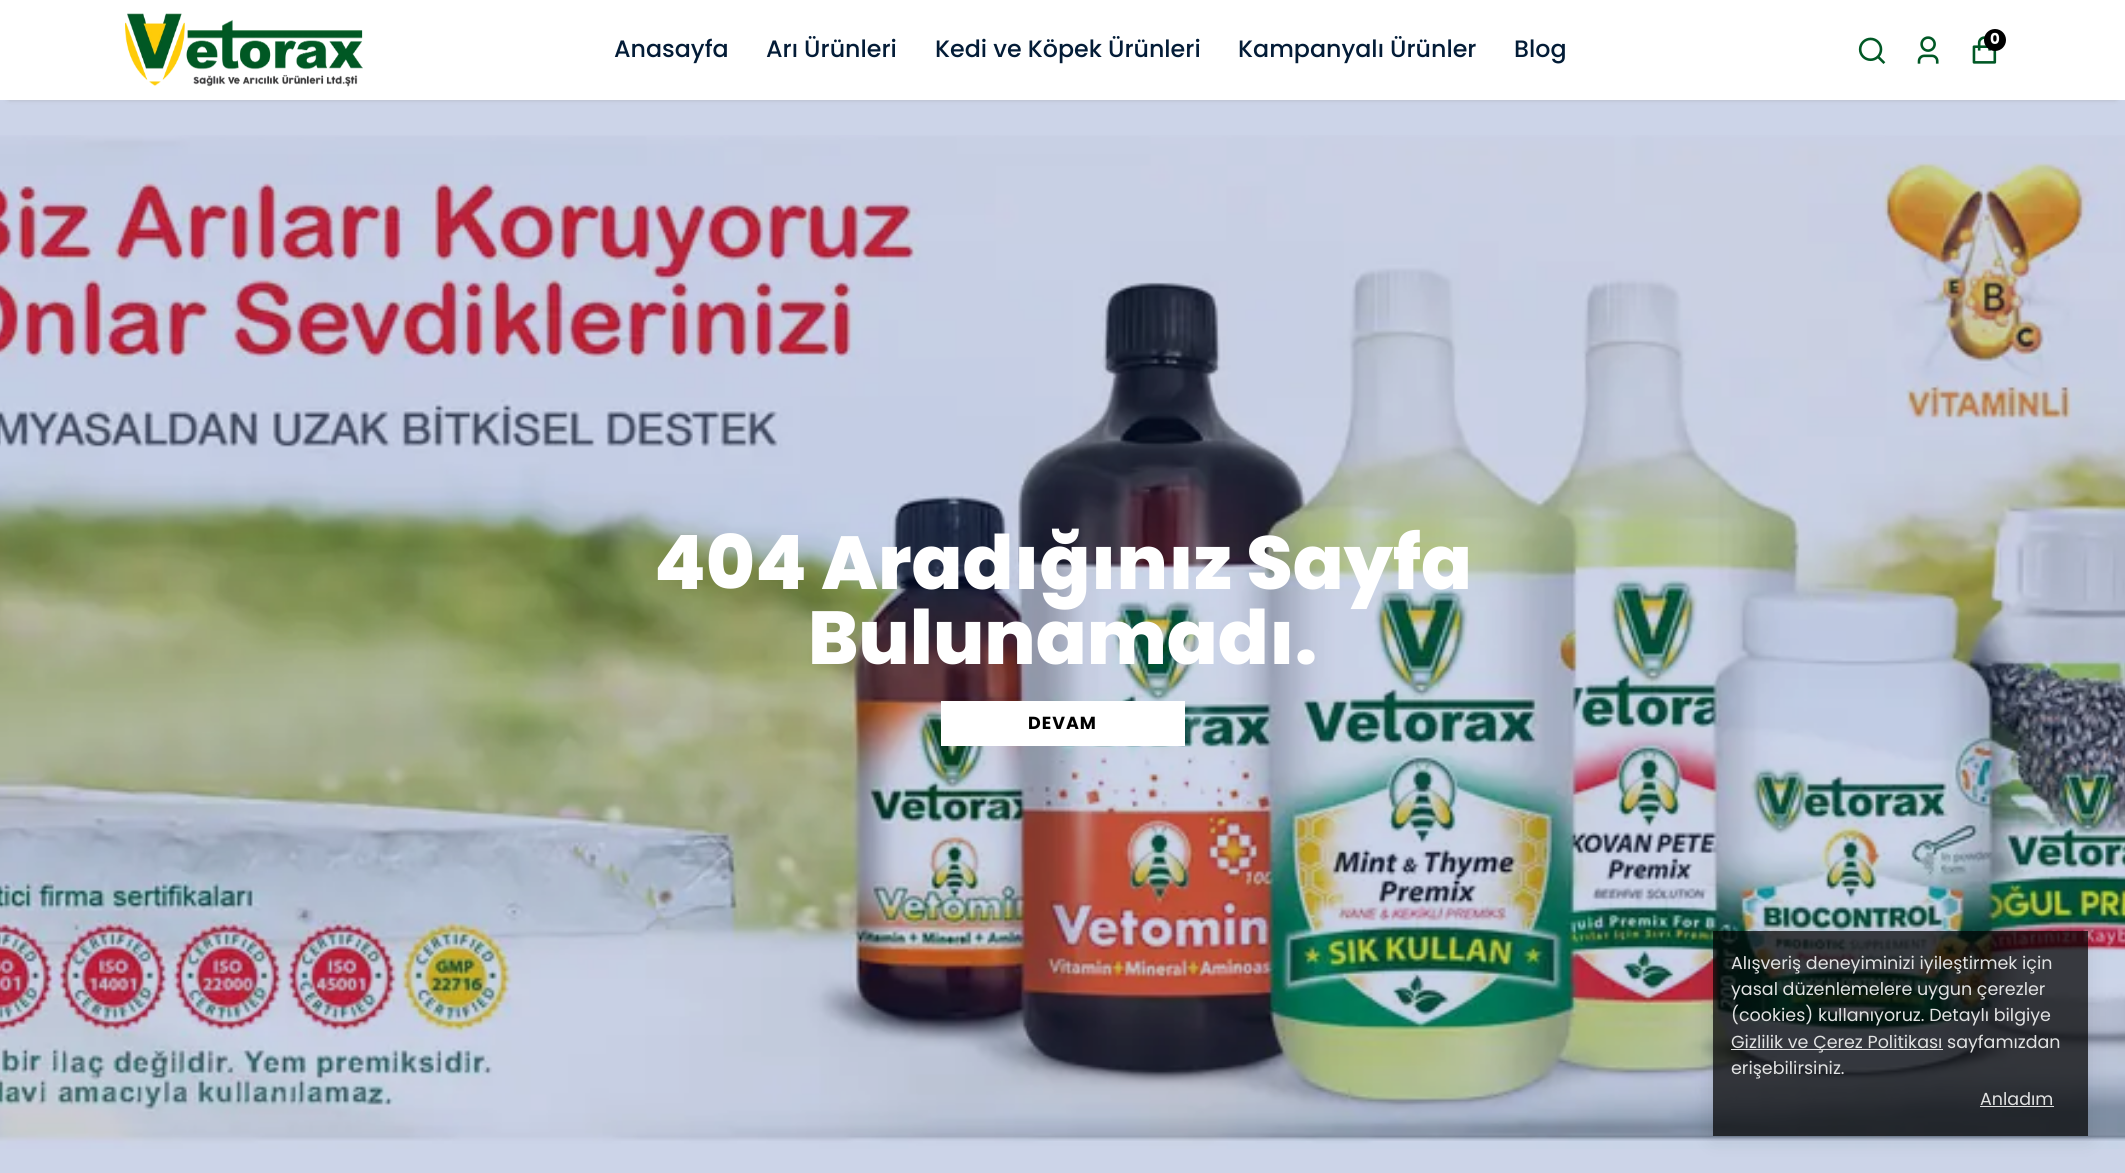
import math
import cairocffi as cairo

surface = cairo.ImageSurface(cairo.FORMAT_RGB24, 2125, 1173)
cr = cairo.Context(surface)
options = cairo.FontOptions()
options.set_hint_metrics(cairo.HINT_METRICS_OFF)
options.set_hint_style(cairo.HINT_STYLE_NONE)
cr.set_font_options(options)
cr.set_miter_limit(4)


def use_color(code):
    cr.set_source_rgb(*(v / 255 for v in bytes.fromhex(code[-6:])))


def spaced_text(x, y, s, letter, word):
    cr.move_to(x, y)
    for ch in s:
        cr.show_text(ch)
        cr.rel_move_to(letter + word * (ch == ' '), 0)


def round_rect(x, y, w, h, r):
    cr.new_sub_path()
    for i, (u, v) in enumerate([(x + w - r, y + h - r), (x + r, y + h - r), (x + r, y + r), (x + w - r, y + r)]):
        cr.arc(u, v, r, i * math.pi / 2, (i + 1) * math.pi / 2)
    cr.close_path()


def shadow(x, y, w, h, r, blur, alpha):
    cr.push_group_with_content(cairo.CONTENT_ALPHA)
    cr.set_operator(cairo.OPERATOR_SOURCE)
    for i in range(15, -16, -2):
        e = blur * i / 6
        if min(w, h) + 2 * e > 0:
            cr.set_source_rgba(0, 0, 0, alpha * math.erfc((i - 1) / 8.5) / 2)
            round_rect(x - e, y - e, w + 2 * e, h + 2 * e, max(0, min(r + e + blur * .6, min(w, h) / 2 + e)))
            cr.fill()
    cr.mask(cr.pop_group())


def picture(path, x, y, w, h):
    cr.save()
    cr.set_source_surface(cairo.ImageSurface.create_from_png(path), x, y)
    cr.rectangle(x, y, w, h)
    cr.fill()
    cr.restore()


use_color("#ccd4e8")
cr.paint()
use_color("#989898")
shadow(9, 15, 2107, 83, 0, 3, 1)
use_color("#ffffff")
cr.rectangle(0, 0, 2125, 100)
cr.fill()
picture("img1.png", 125, 13, 238, 74)
cr.select_font_face("Poppins Medium")
cr.set_font_size(23.75)
use_color("#031c37")
cr.move_to(614, 57)
cr.show_text("Anasayfa")
cr.move_to(766, 57)
cr.show_text("Arı Ürünleri")
cr.move_to(935, 57)
cr.show_text("Kedi ve Köpek Ürünleri")
cr.move_to(1238, 57)
cr.show_text("Kampanyalı Ürünler")
cr.move_to(1514, 57)
cr.show_text("Blog")
picture("img2.png", 1858, 37, 28, 27)
picture("img3.png", 1917, 36, 22, 28)
picture("img4.png", 1972, 36, 25, 28)
use_color("#000000")
cr.arc(1995, 40, 11, 0, 2 * math.pi)
cr.fill()
cr.select_font_face("Poppins", cairo.FONT_SLANT_NORMAL, cairo.FONT_WEIGHT_BOLD)
cr.set_font_size(15)
use_color("#ffffff")
cr.move_to(1990, 44)
cr.show_text("0")
picture("img5.png", 0, 135, 2125, 1014)
cr.save()
cr.set_fill_rule(cairo.FILL_RULE_EVEN_ODD)
cr.new_path()
cr.move_to(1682, 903)
cr.line_to(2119, 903)
cr.line_to(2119, 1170)
cr.line_to(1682, 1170)
cr.close_path()
cr.move_to(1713, 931)
cr.line_to(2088, 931)
cr.line_to(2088, 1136)
cr.line_to(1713, 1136)
cr.close_path()
cr.clip()
use_color("#000000")
shadow(1713, 934, 375, 205, 0, 10, 0.1)
cr.restore()
cr.set_source_rgba(0, 0, 0, 0.73)
cr.rectangle(1713, 931, 375, 205)
cr.fill()
cr.select_font_face("Poppins")
cr.set_font_size(17.5)
use_color("#e1e2e2")
cr.move_to(1731, 969)
cr.show_text("Alışveriş deneyiminizi iyileştirmek için")
cr.move_to(1731, 995)
cr.show_text("yasal düzenlemelere uygun çerezler")
cr.move_to(1731, 1021)
cr.show_text("(cookies) kullanıyoruz. Detaylı bilgiye")
cr.set_source_rgba(1, 1, 1, 0.86)
cr.rectangle(1731, 1049, 212, 1)
cr.fill()
use_color("#e1e2e2")
cr.move_to(1731, 1048)
cr.show_text("Gizlilik ve Çerez Politikası")
cr.move_to(1947, 1048)
cr.show_text("sayfamızdan")
cr.move_to(1731, 1074)
cr.show_text("erişebilirsiniz.")
cr.move_to(1980, 1105)
cr.show_text("Anladım")
use_color("#e0e1e2")
cr.rectangle(1980, 1106, 74, 1)
cr.fill()
cr.select_font_face("Poppins ExtraBold")
cr.set_font_size(75)
use_color("#ffffff")
cr.move_to(654, 589)
cr.show_text("404 Aradığınız Sayfa")
cr.move_to(808, 664)
cr.show_text("Bulunamadı.")
cr.rectangle(941, 701, 244, 45)
cr.fill()
cr.select_font_face("Poppins", cairo.FONT_SLANT_NORMAL, cairo.FONT_WEIGHT_BOLD)
cr.set_font_size(17.5)
use_color("#000000")
spaced_text(1028, 729, "DEVAM", 1, 0)
surface.write_to_png("result.png")
